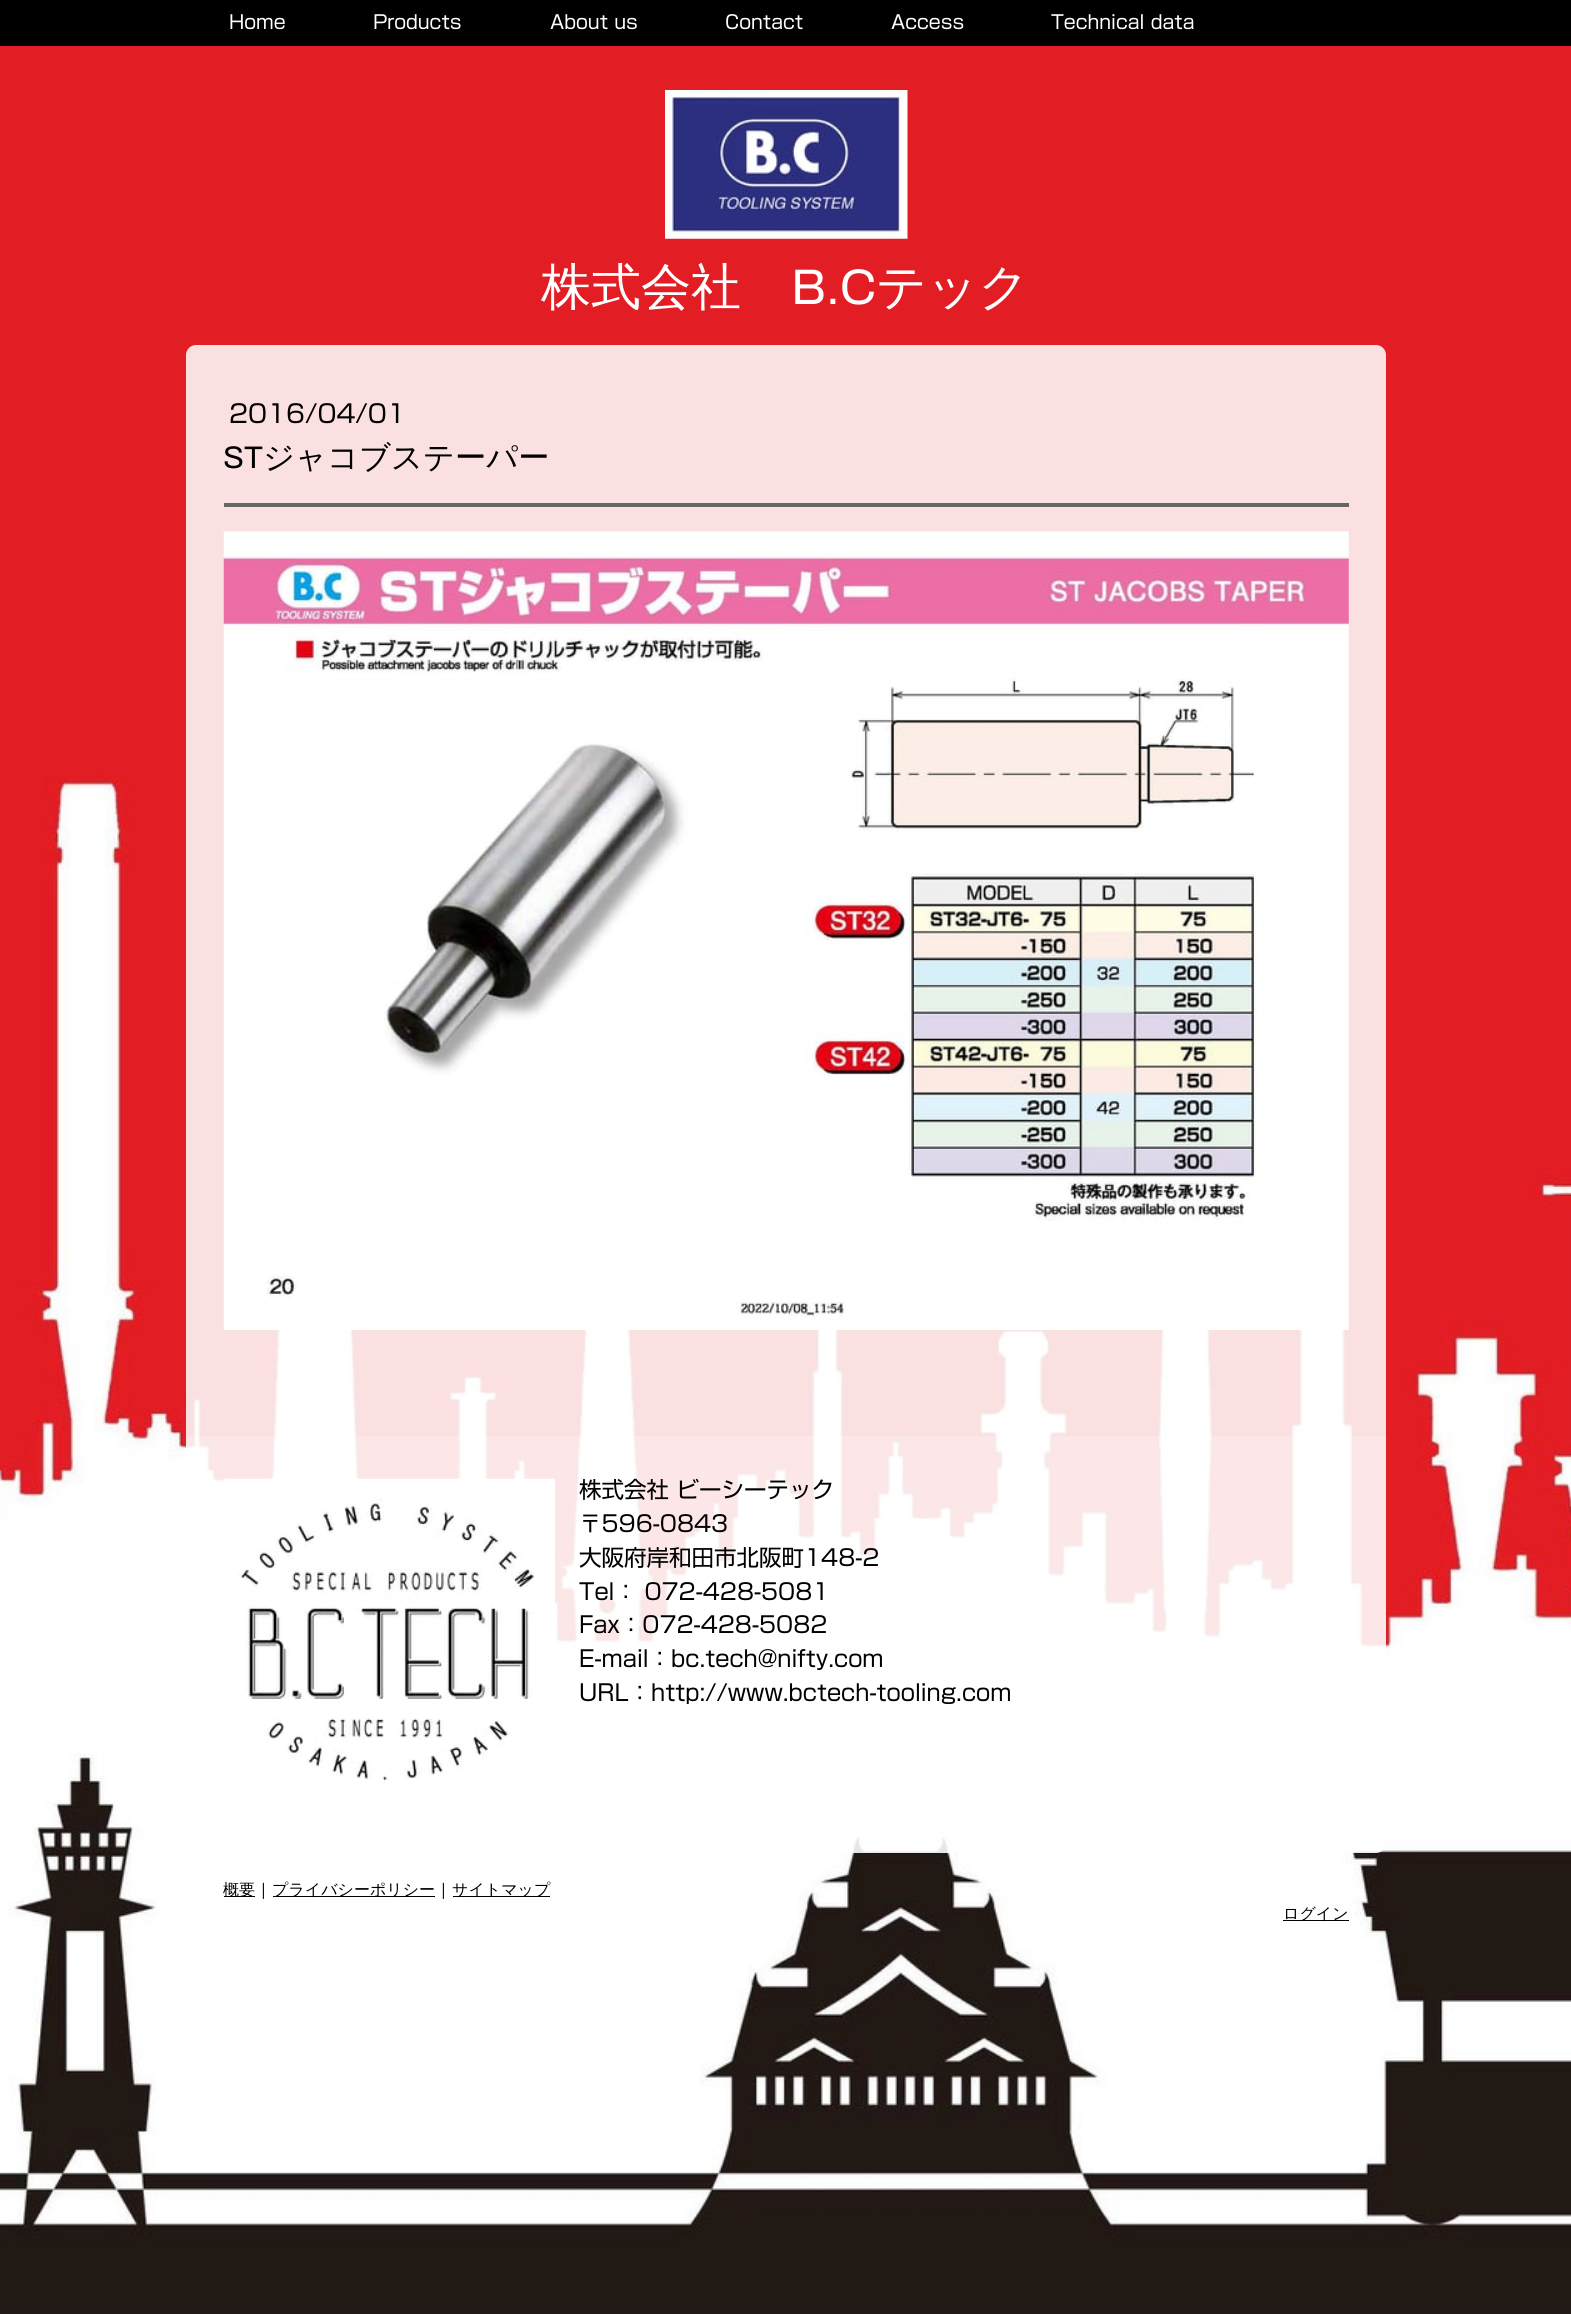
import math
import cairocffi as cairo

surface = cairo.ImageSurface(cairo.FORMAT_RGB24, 1571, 2314)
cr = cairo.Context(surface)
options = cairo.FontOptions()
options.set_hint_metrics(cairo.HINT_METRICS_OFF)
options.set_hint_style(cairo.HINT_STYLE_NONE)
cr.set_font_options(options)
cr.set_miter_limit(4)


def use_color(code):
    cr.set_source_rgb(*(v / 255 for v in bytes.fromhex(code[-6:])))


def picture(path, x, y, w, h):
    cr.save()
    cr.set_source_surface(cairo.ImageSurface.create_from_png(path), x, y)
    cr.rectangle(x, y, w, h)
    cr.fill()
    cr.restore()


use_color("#ffffff")
cr.paint()
use_color("#000000")
cr.rectangle(0, 0, 1571, 46)
cr.fill()
cr.select_font_face("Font")
cr.set_font_size(18.75)
use_color("#ffffff")
cr.move_to(229, 29)
cr.show_text("Home")
cr.move_to(373, 29)
cr.show_text("Products")
cr.move_to(550, 29)
cr.show_text("About us")
cr.move_to(725, 29)
cr.show_text("Contact")
cr.move_to(891, 29)
cr.show_text("Access")
cr.move_to(1051, 29)
cr.show_text("Technical data")
picture("img2.png", 0, 46, 1571, 2268)
picture("img1.png", 665, 90, 243, 149)
cr.select_font_face("WenQuanYi Zen Hei Medium")
cr.set_font_size(50)
cr.move_to(541, 304)
cr.show_text("株式会社")
cr.select_font_face("Archivo SemiBold")
cr.move_to(791, 304)
cr.show_text("B.C")
cr.select_font_face("WenQuanYi Zen Hei Medium")
cr.move_to(876, 304)
cr.show_text("テック")
cr.set_source_rgba(1, 1, 1, 0.86)
cr.new_path()
cr.move_to(196, 345)
cr.line_to(1376, 345)
cr.curve_to(1381.5, 345, 1386, 349.5, 1386, 355)
cr.line_to(1386, 1436)
cr.line_to(186, 1436)
cr.line_to(186, 355)
cr.curve_to(186, 349.5, 190.5, 345, 196, 345)
cr.close_path()
cr.fill()
cr.select_font_face("Font")
cr.set_font_size(25)
use_color("#000000")
cr.move_to(229, 423)
cr.show_text("2016/04/01")
cr.select_font_face("Archivo SemiBold")
cr.set_font_size(31.25)
cr.move_to(223, 468)
cr.show_text("ST")
cr.select_font_face("WenQuanYi Zen Hei Medium")
cr.move_to(263, 468)
cr.show_text("ジャコブステーパー")
use_color("#666666")
cr.rectangle(224, 503, 1125, 4)
cr.fill()
picture("img3.png", 223, 531, 1126, 799)
cr.set_source_rgba(1, 1, 1, 0.89)
cr.new_path()
cr.move_to(186, 1436)
cr.line_to(1386, 1436)
cr.line_to(1386, 1843)
cr.curve_to(1386, 1848.5, 1381.5, 1853, 1376, 1853)
cr.line_to(196, 1853)
cr.curve_to(190.5, 1853, 186, 1848.5, 186, 1843)
cr.close_path()
cr.fill()
picture("img4.png", 223, 1478, 332, 306)
cr.select_font_face("Font")
cr.set_font_size(22.5)
use_color("#000000")
cr.move_to(579, 1498)
cr.show_text("株式会社 ビーシーテック")
cr.move_to(579, 1532)
cr.show_text("〒596-0843")
cr.move_to(579, 1566)
cr.show_text("大阪府岸和田市北阪町148-2")
cr.move_to(579, 1600)
cr.show_text("Tel： 072-428-5081")
cr.move_to(579, 1633)
cr.show_text("Fax：072-428-5082")
cr.move_to(579, 1667)
cr.show_text("E-mail：bc.tech@nifty.com")
cr.move_to(579, 1701)
cr.show_text("URL：http://www.bctech-tooling.com")
cr.rectangle(224, 1896, 31, 1)
cr.fill()
cr.select_font_face("WenQuanYi Zen Hei Medium")
cr.set_font_size(16)
cr.move_to(223, 1895)
cr.show_text("概要")
cr.select_font_face("Open Sans")
cr.move_to(259, 1895)
cr.show_text("|")
cr.rectangle(273, 1896, 162, 1)
cr.fill()
cr.select_font_face("WenQuanYi Zen Hei Medium")
cr.move_to(272, 1895)
cr.show_text("プライバシーポリシー")
cr.select_font_face("Open Sans")
cr.move_to(439, 1895)
cr.show_text("|")
cr.rectangle(453, 1896, 97, 1)
cr.fill()
cr.select_font_face("WenQuanYi Zen Hei Medium")
cr.move_to(452, 1895)
cr.show_text("サイトマップ")
cr.rectangle(1283, 1920, 66, 1)
cr.fill()
cr.move_to(1283, 1919)
cr.show_text("ログイン")
surface.write_to_png("result.png")
